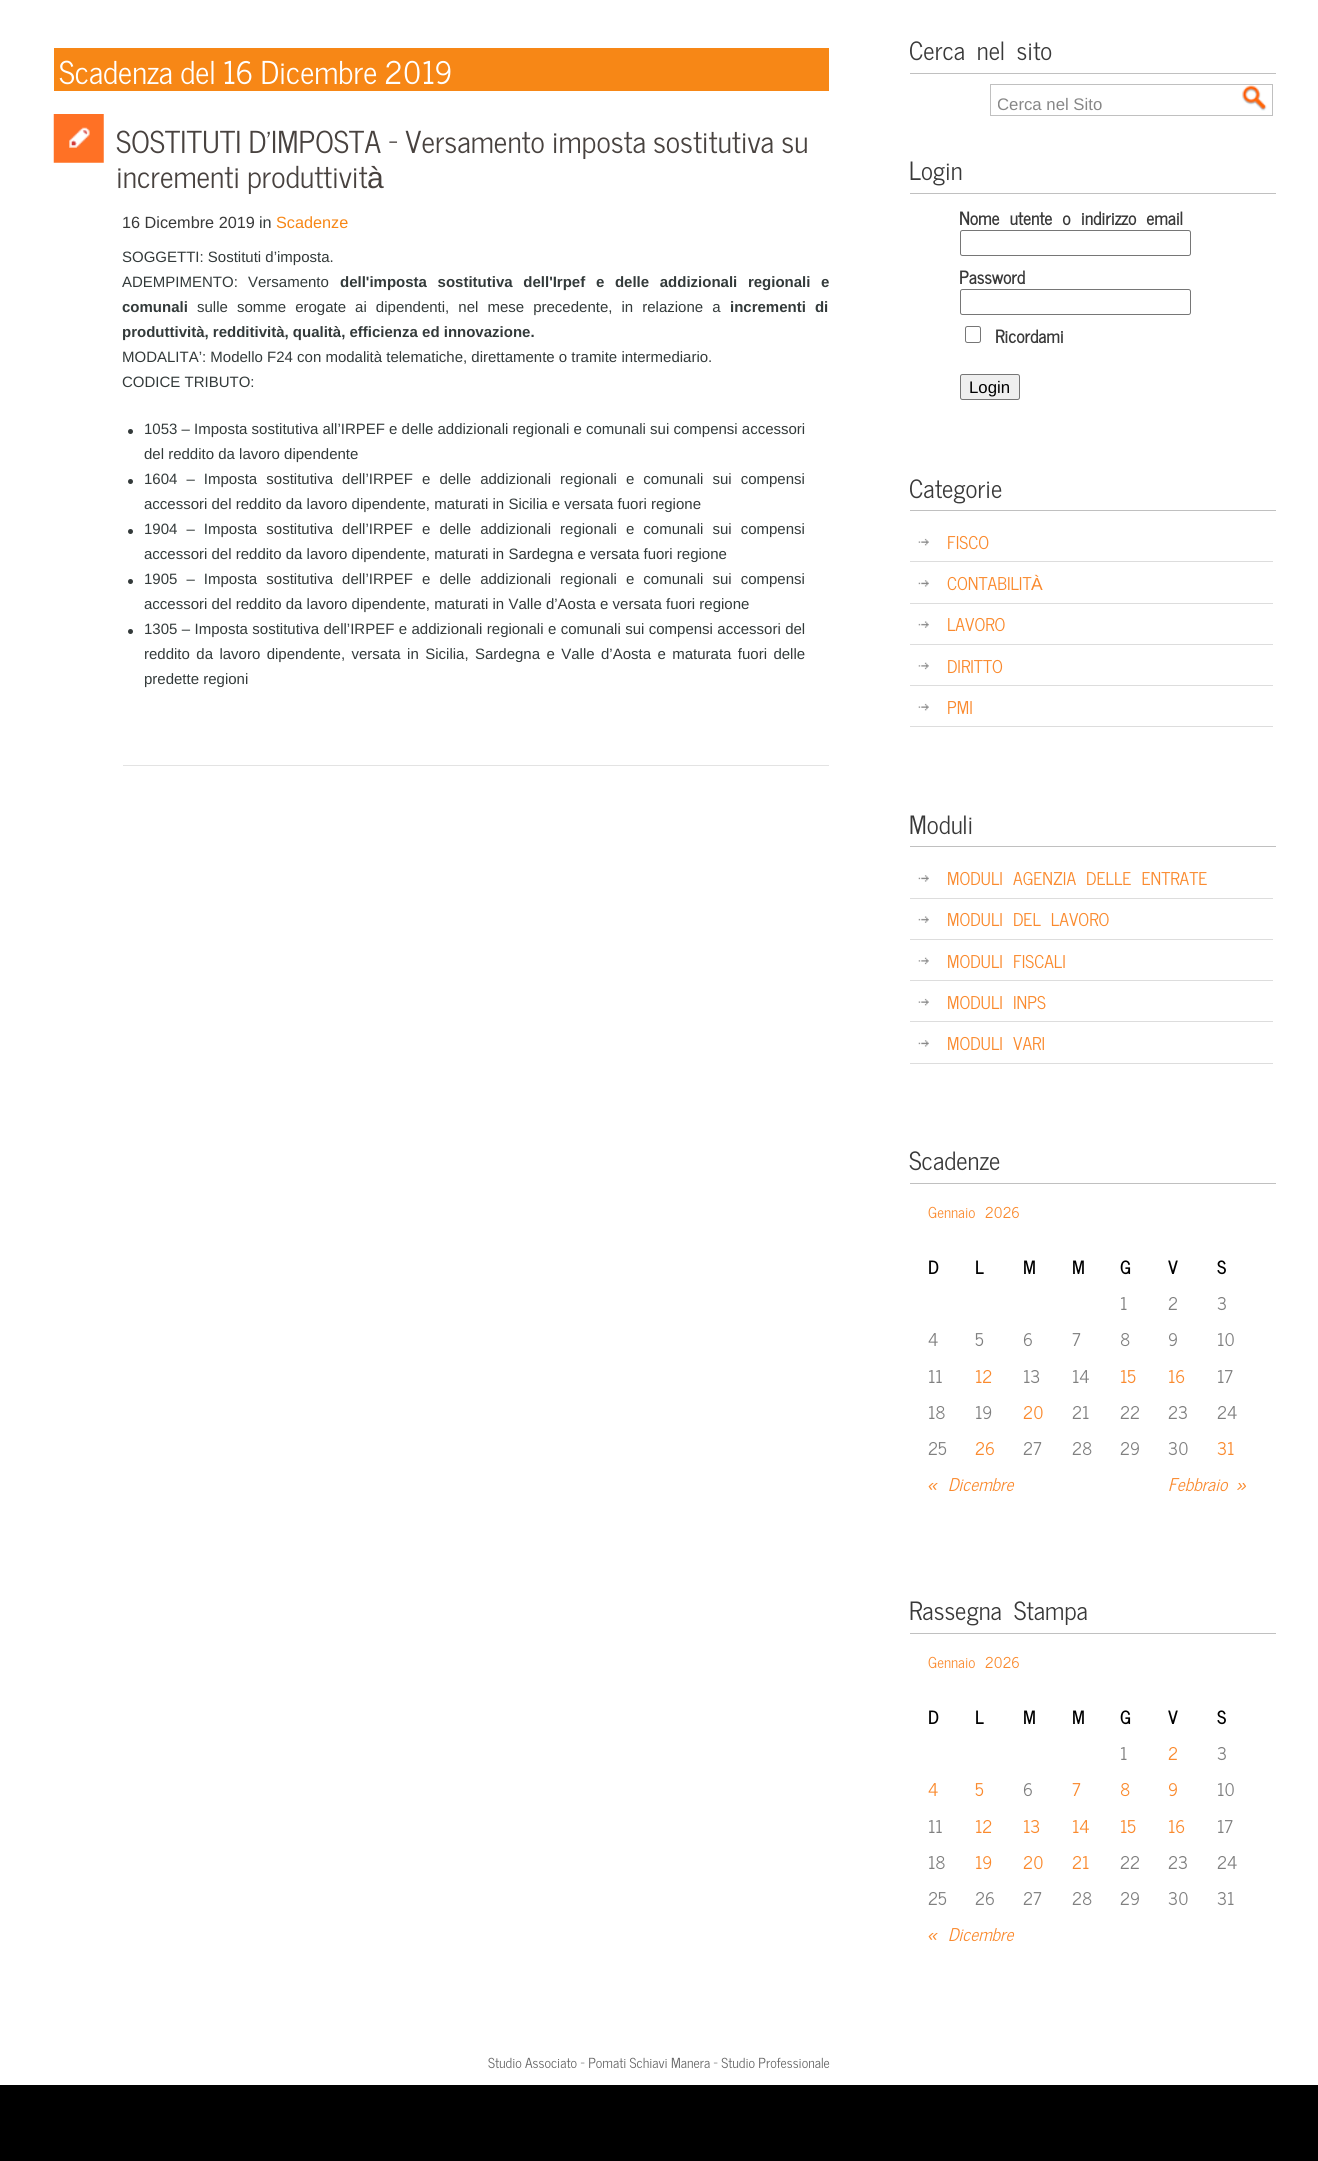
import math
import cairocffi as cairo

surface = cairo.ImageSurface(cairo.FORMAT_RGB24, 1318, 2161)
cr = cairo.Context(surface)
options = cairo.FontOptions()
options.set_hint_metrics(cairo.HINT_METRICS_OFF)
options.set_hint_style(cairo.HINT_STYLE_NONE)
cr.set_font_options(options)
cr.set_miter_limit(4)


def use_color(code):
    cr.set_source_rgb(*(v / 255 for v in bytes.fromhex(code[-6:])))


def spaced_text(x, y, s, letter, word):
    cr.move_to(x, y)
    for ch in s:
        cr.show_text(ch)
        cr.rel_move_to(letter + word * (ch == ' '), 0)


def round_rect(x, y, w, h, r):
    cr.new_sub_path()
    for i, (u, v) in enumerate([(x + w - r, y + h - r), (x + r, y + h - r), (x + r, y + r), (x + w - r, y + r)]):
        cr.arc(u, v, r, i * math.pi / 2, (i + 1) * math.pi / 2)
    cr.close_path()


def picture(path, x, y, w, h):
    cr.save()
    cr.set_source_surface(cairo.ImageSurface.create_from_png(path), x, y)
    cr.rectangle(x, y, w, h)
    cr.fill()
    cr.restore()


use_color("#ffffff")
cr.paint()
use_color("#f78716")
cr.rectangle(54, 48, 775, 43)
cr.fill()
cr.select_font_face("News Cycle Medium")
cr.set_font_size(31.25)
use_color("#ffffff")
cr.move_to(59, 84)
cr.show_text("Scadenza del 16 Dicembre 2019")
picture("img1.png", 53, 114, 51, 49)
cr.set_font_size(30)
use_color("#48423f")
cr.move_to(116, 153)
cr.show_text("SOSTITUTI D’IMPOSTA – Versamento imposta sostitutiva su")
cr.move_to(116, 188)
cr.show_text("incrementi produttivit")
cr.select_font_face("Liberation Sans")
cr.move_to(367, 188)
cr.show_text("à")
cr.set_font_size(16.25)
use_color("#393939")
cr.move_to(122, 228)
cr.show_text("16 Dicembre 2019")
use_color("#333a3a")
cr.move_to(259, 228)
cr.show_text("in")
use_color("#f78716")
cr.move_to(276, 228)
cr.show_text("Scadenze")
use_color("#e3e3e3")
cr.rectangle(123, 765, 706, 1)
cr.fill()
cr.set_font_size(15)
use_color("#333a3a")
cr.move_to(122, 262)
cr.show_text("SOGGETTI: Sostituti d’imposta.")
cr.move_to(122, 287)
cr.show_text("ADEMPIMENTO:")
cr.move_to(248, 287)
cr.show_text("Versamento")
cr.select_font_face("Liberation Sans", cairo.FONT_SLANT_NORMAL, cairo.FONT_WEIGHT_BOLD)
spaced_text(340, 287, "dell'imposta sostitutiva dell'Irpef e delle addizionali regionali e", 0, 6.5)
cr.move_to(122, 312)
cr.show_text("comunali")
cr.select_font_face("Liberation Sans")
spaced_text(197, 312, "sulle somme erogate ai dipendenti, nel mese precedente, in relazione a", 0, 4.9)
cr.select_font_face("Liberation Sans", cairo.FONT_SLANT_NORMAL, cairo.FONT_WEIGHT_BOLD)
spaced_text(730, 312, "incrementi di", 0, 4.9)
cr.move_to(122, 337)
cr.show_text("produttività, redditività, qualità, efficienza ed innovazione.")
cr.select_font_face("Liberation Sans")
cr.move_to(122, 362)
cr.show_text("MODALITA’: Modello F24 con modalità telematiche, direttamente o tramite intermediario.")
cr.move_to(122, 387)
cr.show_text("CODICE TRIBUTO:")
cr.new_path()
cr.arc(130.5, 431.5, 2.5, 0, 2 * math.pi)
cr.fill()
cr.move_to(144, 434)
cr.show_text("1053 – Imposta sostitutiva all’IRPEF e delle addizionali regionali e comunali sui compensi accessori")
cr.move_to(144, 459)
cr.show_text("del reddito da lavoro dipendente")
cr.new_path()
cr.arc(130.5, 481.5, 2.5, 0, 2 * math.pi)
cr.fill()
spaced_text(144, 484, "1604 – Imposta sostitutiva dell’IRPEF e delle addizionali regionali e comunali sui compensi", 0, 4.9)
cr.move_to(144, 509)
cr.show_text("accessori del reddito da lavoro dipendente, maturati in Sicilia e versata fuori regione")
cr.new_path()
cr.arc(130.5, 531.5, 2.5, 0, 2 * math.pi)
cr.fill()
spaced_text(144, 534, "1904 – Imposta sostitutiva dell’IRPEF e delle addizionali regionali e comunali sui compensi", 0, 4.9)
cr.move_to(144, 559)
cr.show_text("accessori del reddito da lavoro dipendente, maturati in Sardegna e versata fuori regione")
cr.new_path()
cr.arc(130.5, 581.5, 2.5, 0, 2 * math.pi)
cr.fill()
spaced_text(144, 584, "1905 – Imposta sostitutiva dell’IRPEF e delle addizionali regionali e comunali sui compensi", 0, 4.9)
cr.move_to(144, 609)
cr.show_text("accessori del reddito da lavoro dipendente, maturati in Valle d’Aosta e versata fuori regione")
cr.new_path()
cr.arc(130.5, 631.5, 2.5, 0, 2 * math.pi)
cr.fill()
spaced_text(144, 634, "1305 – Imposta sostitutiva dell’IRPEF e addizionali regionali e comunali sui compensi accessori del", 0, 0.25)
spaced_text(144, 659, "reddito da lavoro dipendente, versata in Sicilia, Sardegna e Valle d’Aosta e maturata fuori delle", 0, 2.25)
cr.move_to(144, 684)
cr.show_text("predette regioni")
use_color("#c0c0c0")
cr.rectangle(910, 73, 366, 1)
cr.fill()
cr.select_font_face("News Cycle Medium")
cr.set_font_size(25)
use_color("#393939")
spaced_text(909, 60, "Cerca nel sito", 0, 6)
picture("img2.png", 1241, 85, 26, 26)
cr.rectangle(990.5, 84.5, 282, 31)
use_color("#c0c0c0")
cr.set_line_width(1)
cr.stroke()
cr.save()
cr.rectangle(998, 95, 275, 19)
cr.clip()
cr.select_font_face("Liberation Sans")
cr.set_font_size(16.75)
use_color("#878787")
cr.move_to(997, 110)
cr.show_text("Cerca nel Sito")
cr.restore()
cr.rectangle(910, 193, 366, 1)
cr.fill()
use_color("#393939")
cr.move_to(909, 180)
cr.show_text("Login")
cr.select_font_face("News Cycle", cairo.FONT_SLANT_NORMAL, cairo.FONT_WEIGHT_BOLD)
cr.set_font_size(17.5)
spaced_text(959, 225, "Nome utente o indirizzo email", 0, 6)
round_rect(960.5, 230.5, 230, 25, 2)
use_color("#767676")
cr.stroke()
use_color("#393939")
cr.move_to(959, 284)
cr.show_text("Password")
round_rect(960.5, 289.5, 230, 25, 2)
use_color("#767676")
cr.stroke()
round_rect(965.5, 326.5, 15, 16, 2)
cr.stroke()
use_color("#393939")
cr.move_to(995, 343)
cr.show_text("Ricordami")
use_color("#efefef")
round_rect(960.5, 374.5, 59, 25, 2)
cr.fill_preserve()
use_color("#767676")
cr.stroke()
cr.select_font_face("Liberation Sans")
cr.set_font_size(16.75)
use_color("#000000")
cr.move_to(969, 393)
cr.show_text("Login")
use_color("#c0c0c0")
cr.rectangle(910, 510, 366, 1)
cr.fill()
cr.select_font_face("News Cycle Medium")
cr.set_font_size(25)
use_color("#393939")
cr.move_to(909, 498)
cr.show_text("Categorie")
picture("img3.png", 918, 538, 11, 8)
use_color("#dddddd")
cr.rectangle(910, 561, 363, 1)
cr.fill()
cr.set_font_size(17.5)
use_color("#fa8a2e")
cr.move_to(947, 549)
cr.show_text("FISCO")
picture("img4.png", 918, 580, 11, 7)
use_color("#dddddd")
cr.rectangle(910, 603, 363, 1)
cr.fill()
use_color("#fa8a2e")
cr.move_to(947, 590)
cr.show_text("CONTABILIT")
cr.select_font_face("Liberation Sans")
cr.move_to(1031, 590)
cr.show_text("À")
picture("img5.png", 918, 621, 11, 7)
use_color("#dddddd")
cr.rectangle(910, 644, 363, 1)
cr.fill()
cr.select_font_face("News Cycle Medium")
use_color("#fa8a2e")
cr.move_to(947, 631)
cr.show_text("LAVORO")
picture("img6.png", 918, 662, 11, 8)
use_color("#dddddd")
cr.rectangle(910, 685, 363, 1)
cr.fill()
use_color("#fa8a2e")
cr.move_to(947, 673)
cr.show_text("DIRITTO")
picture("img3.png", 918, 703, 11, 8)
use_color("#dddddd")
cr.rectangle(910, 726, 363, 1)
cr.fill()
use_color("#fa8a2e")
cr.move_to(947, 714)
cr.show_text("PMI")
use_color("#c0c0c0")
cr.rectangle(910, 846, 366, 1)
cr.fill()
cr.set_font_size(25)
use_color("#393939")
cr.move_to(909, 834)
cr.show_text("Moduli")
picture("img7.png", 918, 875, 11, 7)
use_color("#dddddd")
cr.rectangle(910, 898, 363, 1)
cr.fill()
cr.set_font_size(17.5)
use_color("#fa8a2e")
spaced_text(947, 885, "MODULI AGENZIA DELLE ENTRATE", 0, 6)
picture("img5.png", 918, 916, 11, 7)
use_color("#dddddd")
cr.rectangle(910, 939, 363, 1)
cr.fill()
use_color("#fa8a2e")
spaced_text(947, 926, "MODULI DEL LAVORO", 0, 6)
picture("img6.png", 918, 957, 11, 8)
use_color("#dddddd")
cr.rectangle(910, 980, 363, 1)
cr.fill()
use_color("#fa8a2e")
spaced_text(947, 968, "MODULI FISCALI", 0, 6)
picture("img3.png", 918, 998, 11, 8)
use_color("#dddddd")
cr.rectangle(910, 1021, 363, 1)
cr.fill()
use_color("#fa8a2e")
spaced_text(947, 1009, "MODULI INPS", 0, 6)
picture("img4.png", 918, 1040, 11, 7)
use_color("#dddddd")
cr.rectangle(910, 1063, 363, 1)
cr.fill()
use_color("#fa8a2e")
spaced_text(947, 1050, "MODULI VARI", 0, 6)
use_color("#c0c0c0")
cr.rectangle(910, 1183, 366, 1)
cr.fill()
cr.set_font_size(25)
use_color("#393939")
cr.move_to(909, 1170)
cr.show_text("Scadenze")
cr.set_font_size(15)
use_color("#fa8a2e")
spaced_text(928, 1218, "Gennaio 2026", 0, 6)
cr.select_font_face("News Cycle", cairo.FONT_SLANT_NORMAL, cairo.FONT_WEIGHT_BOLD)
cr.set_font_size(17.5)
use_color("#000000")
cr.move_to(928, 1274)
cr.show_text("D")
cr.move_to(975, 1274)
cr.show_text("L")
cr.move_to(1023, 1274)
cr.show_text("M")
cr.move_to(1072, 1274)
cr.show_text("M")
cr.move_to(1120, 1274)
cr.show_text("G")
cr.move_to(1168, 1274)
cr.show_text("V")
cr.move_to(1217, 1274)
cr.show_text("S")
cr.select_font_face("News Cycle Medium")
use_color("#808080")
cr.move_to(1120, 1310)
cr.show_text("1")
cr.move_to(1168, 1310)
cr.show_text("2")
cr.move_to(1217, 1310)
cr.show_text("3")
cr.move_to(928, 1346)
cr.show_text("4")
cr.move_to(975, 1346)
cr.show_text("5")
cr.move_to(1023, 1346)
cr.show_text("6")
cr.move_to(1072, 1346)
cr.show_text("7")
cr.move_to(1120, 1346)
cr.show_text("8")
cr.move_to(1168, 1346)
cr.show_text("9")
cr.move_to(1217, 1346)
cr.show_text("10")
cr.move_to(928, 1383)
cr.show_text("11")
use_color("#fa8a2e")
cr.move_to(975, 1383)
cr.show_text("12")
use_color("#808080")
cr.move_to(1023, 1383)
cr.show_text("13")
cr.move_to(1072, 1383)
cr.show_text("14")
use_color("#fa8a2e")
cr.move_to(1120, 1383)
cr.show_text("15")
cr.move_to(1168, 1383)
cr.show_text("16")
use_color("#808080")
cr.move_to(1217, 1383)
cr.show_text("17")
cr.move_to(928, 1419)
cr.show_text("18")
cr.move_to(975, 1419)
cr.show_text("19")
use_color("#fa8a2e")
cr.move_to(1023, 1419)
cr.show_text("20")
use_color("#808080")
cr.move_to(1072, 1419)
cr.show_text("21")
cr.move_to(1120, 1419)
cr.show_text("22")
cr.move_to(1168, 1419)
cr.show_text("23")
cr.move_to(1217, 1419)
cr.show_text("24")
cr.move_to(928, 1455)
cr.show_text("25")
use_color("#fa8a2e")
cr.move_to(975, 1455)
cr.show_text("26")
use_color("#808080")
cr.move_to(1023, 1455)
cr.show_text("27")
cr.move_to(1072, 1455)
cr.show_text("28")
cr.move_to(1120, 1455)
cr.show_text("29")
cr.move_to(1168, 1455)
cr.show_text("30")
use_color("#fa8a2e")
cr.move_to(1217, 1455)
cr.show_text("31")
cr.select_font_face("Liberation Sans", cairo.FONT_SLANT_ITALIC)
cr.move_to(928, 1491)
cr.show_text("«")
cr.select_font_face("News Cycle Medium", cairo.FONT_SLANT_ITALIC)
cr.move_to(948, 1491)
cr.show_text("Dicembre")
cr.move_to(1168, 1491)
cr.show_text("Febbraio")
cr.select_font_face("Liberation Sans", cairo.FONT_SLANT_ITALIC)
cr.move_to(1237, 1491)
cr.show_text("»")
use_color("#c0c0c0")
cr.rectangle(910, 1633, 366, 1)
cr.fill()
cr.select_font_face("News Cycle Medium")
cr.set_font_size(25)
use_color("#393939")
spaced_text(909, 1620, "Rassegna Stampa", 0, 6)
cr.set_font_size(15)
use_color("#fa8a2e")
spaced_text(928, 1668, "Gennaio 2026", 0, 6)
cr.select_font_face("News Cycle", cairo.FONT_SLANT_NORMAL, cairo.FONT_WEIGHT_BOLD)
cr.set_font_size(17.5)
use_color("#000000")
cr.move_to(928, 1724)
cr.show_text("D")
cr.move_to(975, 1724)
cr.show_text("L")
cr.move_to(1023, 1724)
cr.show_text("M")
cr.move_to(1072, 1724)
cr.show_text("M")
cr.move_to(1120, 1724)
cr.show_text("G")
cr.move_to(1168, 1724)
cr.show_text("V")
cr.move_to(1217, 1724)
cr.show_text("S")
cr.select_font_face("News Cycle Medium")
use_color("#808080")
cr.move_to(1120, 1760)
cr.show_text("1")
use_color("#fa8a2e")
cr.move_to(1168, 1760)
cr.show_text("2")
use_color("#808080")
cr.move_to(1217, 1760)
cr.show_text("3")
use_color("#fa8a2e")
cr.move_to(928, 1796)
cr.show_text("4")
cr.move_to(975, 1796)
cr.show_text("5")
use_color("#808080")
cr.move_to(1023, 1796)
cr.show_text("6")
use_color("#fa8a2e")
cr.move_to(1072, 1796)
cr.show_text("7")
cr.move_to(1120, 1796)
cr.show_text("8")
cr.move_to(1168, 1796)
cr.show_text("9")
use_color("#808080")
cr.move_to(1217, 1796)
cr.show_text("10")
cr.move_to(928, 1833)
cr.show_text("11")
use_color("#fa8a2e")
cr.move_to(975, 1833)
cr.show_text("12")
cr.move_to(1023, 1833)
cr.show_text("13")
cr.move_to(1072, 1833)
cr.show_text("14")
cr.move_to(1120, 1833)
cr.show_text("15")
cr.move_to(1168, 1833)
cr.show_text("16")
use_color("#808080")
cr.move_to(1217, 1833)
cr.show_text("17")
cr.move_to(928, 1869)
cr.show_text("18")
use_color("#fa8a2e")
cr.move_to(975, 1869)
cr.show_text("19")
cr.move_to(1023, 1869)
cr.show_text("20")
cr.move_to(1072, 1869)
cr.show_text("21")
use_color("#808080")
cr.move_to(1120, 1869)
cr.show_text("22")
cr.move_to(1168, 1869)
cr.show_text("23")
cr.move_to(1217, 1869)
cr.show_text("24")
cr.move_to(928, 1905)
cr.show_text("25")
cr.move_to(975, 1905)
cr.show_text("26")
cr.move_to(1023, 1905)
cr.show_text("27")
cr.move_to(1072, 1905)
cr.show_text("28")
cr.move_to(1120, 1905)
cr.show_text("29")
cr.move_to(1168, 1905)
cr.show_text("30")
cr.move_to(1217, 1905)
cr.show_text("31")
cr.select_font_face("Liberation Sans", cairo.FONT_SLANT_ITALIC)
use_color("#fa8a2e")
cr.move_to(928, 1941)
cr.show_text("«")
cr.select_font_face("News Cycle Medium", cairo.FONT_SLANT_ITALIC)
cr.move_to(948, 1941)
cr.show_text("Dicembre")
cr.select_font_face("News Cycle Medium")
cr.set_font_size(13.75)
use_color("#656565")
cr.move_to(488, 2068)
cr.show_text("Studio Associato - Pomati Schiavi Manera - Studio Professionale")
use_color("#000000")
cr.rectangle(0, 2085, 1318, 76)
cr.fill()
surface.write_to_png("result.png")
